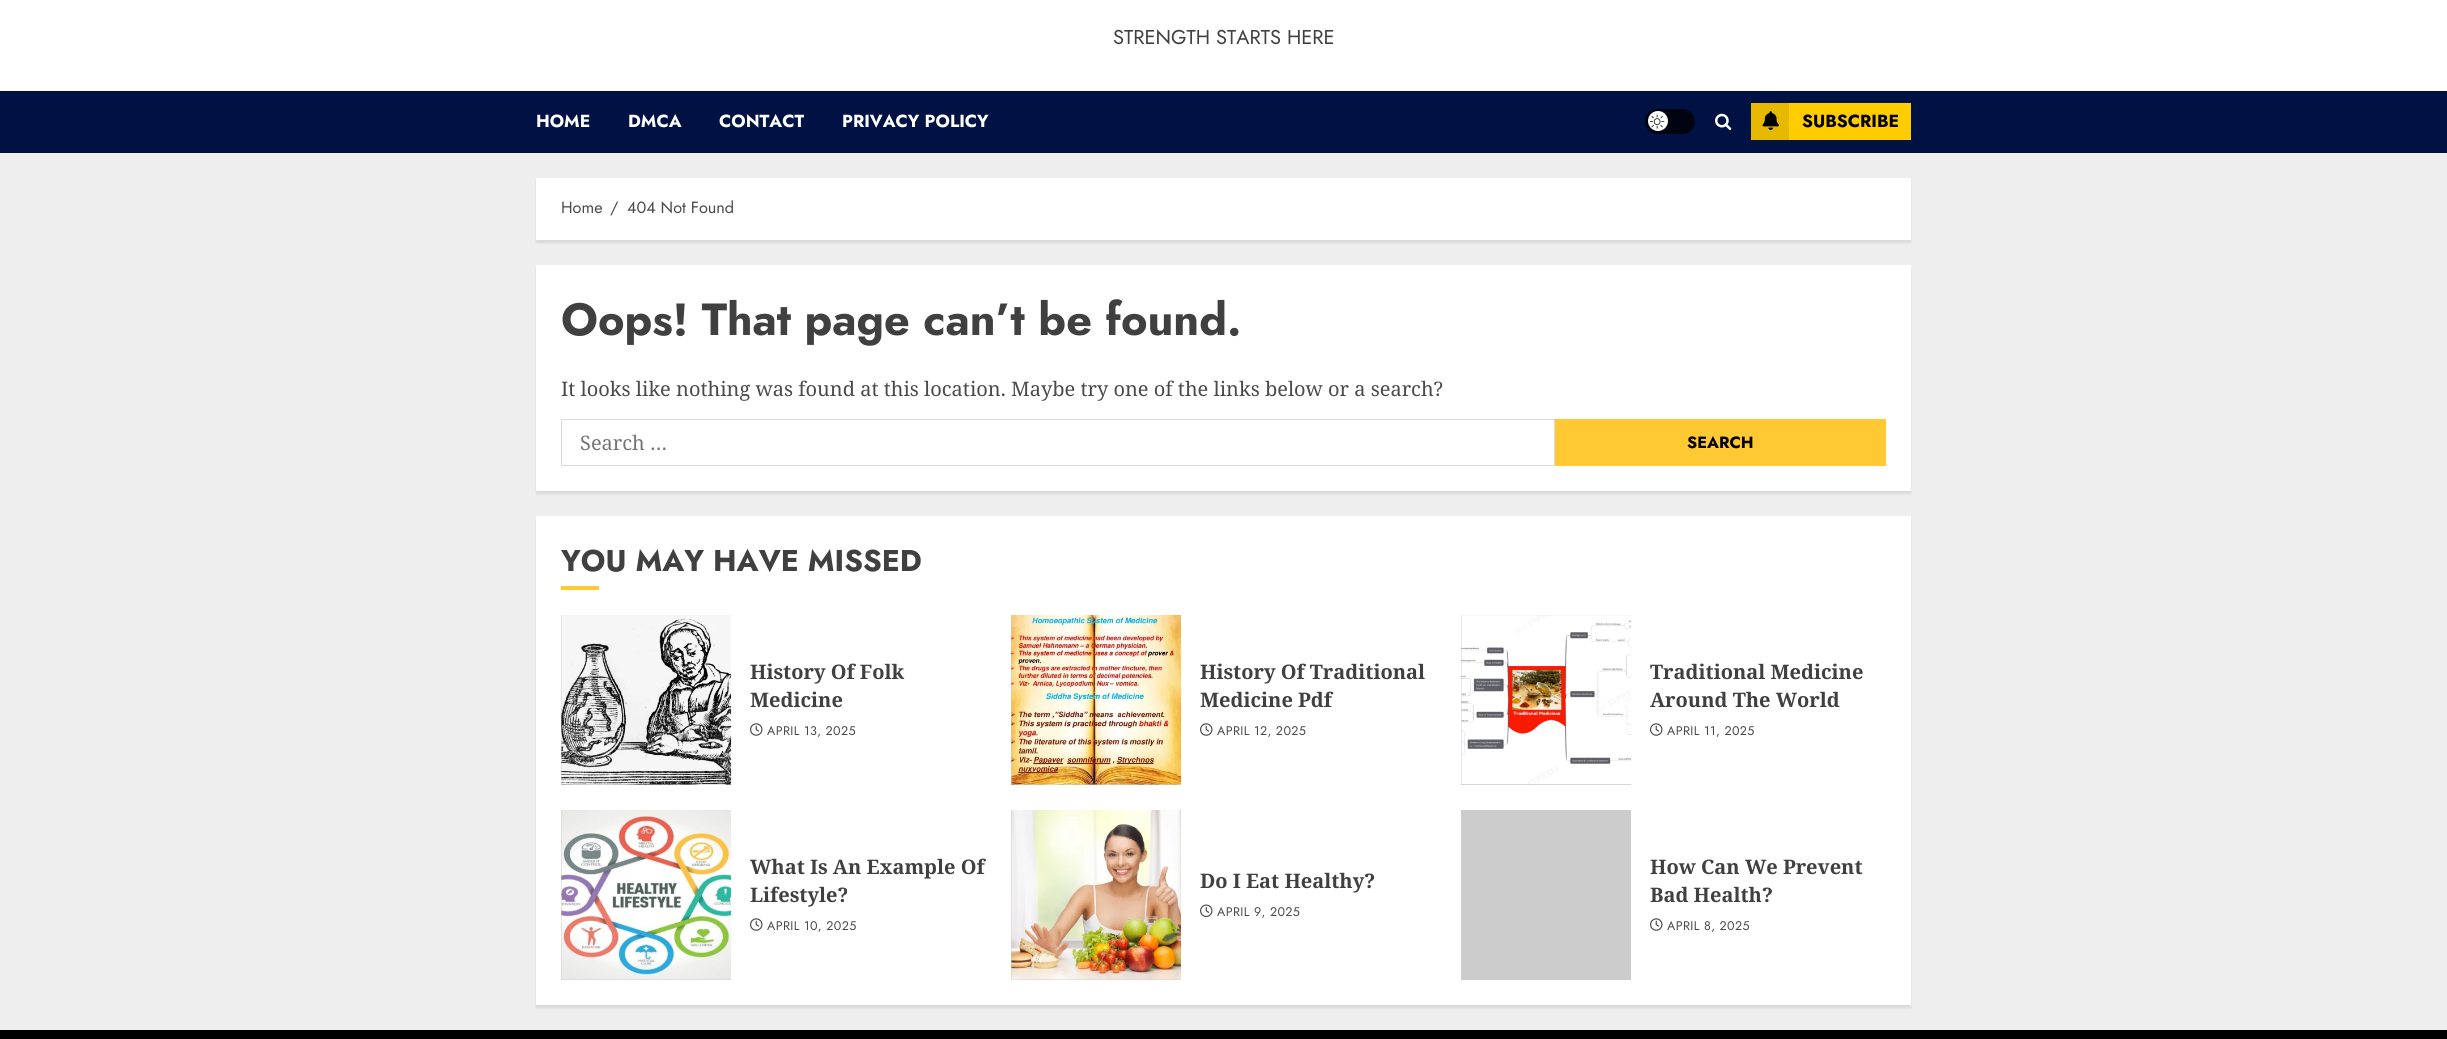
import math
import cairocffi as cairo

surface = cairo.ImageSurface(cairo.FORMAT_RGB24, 2447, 1039)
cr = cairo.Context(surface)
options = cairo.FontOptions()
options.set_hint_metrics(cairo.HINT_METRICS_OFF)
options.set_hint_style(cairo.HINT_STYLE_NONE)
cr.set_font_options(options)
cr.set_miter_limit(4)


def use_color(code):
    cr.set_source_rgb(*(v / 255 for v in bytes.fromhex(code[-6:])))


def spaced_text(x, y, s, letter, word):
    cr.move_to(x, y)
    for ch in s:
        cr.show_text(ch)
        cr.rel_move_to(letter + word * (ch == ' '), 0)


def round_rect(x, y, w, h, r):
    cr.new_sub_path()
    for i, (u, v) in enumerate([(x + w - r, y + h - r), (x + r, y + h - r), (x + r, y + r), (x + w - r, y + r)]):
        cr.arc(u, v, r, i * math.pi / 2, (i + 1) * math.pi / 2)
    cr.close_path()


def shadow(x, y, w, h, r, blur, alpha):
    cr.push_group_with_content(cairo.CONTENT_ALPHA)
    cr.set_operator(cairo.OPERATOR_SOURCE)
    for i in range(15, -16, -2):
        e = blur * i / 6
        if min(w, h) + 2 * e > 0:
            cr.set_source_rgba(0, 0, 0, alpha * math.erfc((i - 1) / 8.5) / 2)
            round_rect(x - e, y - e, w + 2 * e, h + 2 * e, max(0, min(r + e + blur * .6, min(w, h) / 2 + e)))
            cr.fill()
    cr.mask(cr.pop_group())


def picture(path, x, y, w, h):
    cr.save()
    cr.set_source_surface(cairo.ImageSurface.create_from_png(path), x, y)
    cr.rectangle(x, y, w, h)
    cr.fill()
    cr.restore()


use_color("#eeeeee")
cr.paint()
use_color("#ffffff")
cr.rectangle(0, 0, 2447, 91)
cr.fill()
cr.select_font_face("Jost")
cr.set_font_size(20)
use_color("#404040")
cr.move_to(1113, 44)
cr.show_text("STRENGTH STARTS HERE")
use_color("#001144")
cr.rectangle(0, 91, 2447, 62)
cr.fill()
cr.select_font_face("Jost", cairo.FONT_SLANT_NORMAL, cairo.FONT_WEIGHT_BOLD)
cr.set_font_size(17.5)
use_color("#ffffff")
cr.move_to(536, 127)
cr.show_text("HOME")
cr.move_to(628, 127)
cr.show_text("DMCA")
cr.move_to(719, 127)
cr.show_text("CONTACT")
cr.move_to(842, 127)
cr.show_text("PRIVACY POLICY")
use_color("#000411")
round_rect(1645, 109, 50, 25, 12.5)
cr.fill()
use_color("#ffffff")
cr.arc(1658, 121, 10, 0, 2 * math.pi)
cr.fill()
picture("img1.png", 1650, 114, 15, 15)
picture("img2.png", 1715, 113, 17, 17)
use_color("#ffcc00")
cr.rectangle(1789, 103, 122, 37)
cr.fill()
use_color("#e6b800")
cr.rectangle(1751, 103, 38, 37)
cr.fill()
picture("img3.png", 1762, 111, 17, 19)
use_color("#000000")
cr.move_to(1802, 127)
cr.show_text("SUBSCRIBE")
use_color("#000000")
shadow(536, 180, 1375, 63, 0, 1, 0.08)
use_color("#ffffff")
cr.rectangle(536, 178, 1375, 62)
cr.fill()
cr.select_font_face("Jost")
cr.set_font_size(16.25)
use_color("#4a4a4a")
cr.move_to(561, 213)
cr.show_text("Home")
cr.move_to(610, 213)
cr.show_text("/")
cr.move_to(627, 213)
cr.show_text("404 Not Found")
use_color("#000000")
shadow(536, 268, 1375, 226, 0, 1, 0.08)
use_color("#ffffff")
cr.rectangle(536, 265, 1375, 226)
cr.fill()
cr.select_font_face("Jost", cairo.FONT_SLANT_NORMAL, cairo.FONT_WEIGHT_BOLD)
cr.set_font_size(45)
use_color("#404040")
cr.move_to(561, 335)
cr.show_text("Oops! That page can’t be found.")
cr.select_font_face("Noto Serif")
cr.set_font_size(20)
use_color("#4a4a4a")
cr.move_to(561, 396)
cr.show_text("It looks like nothing was found at this location. Maybe try one of the links below or a search?")
cr.rectangle(561.5, 419.5, 993, 46)
use_color("#d9d9d9")
cr.set_line_width(1)
cr.stroke()
use_color("#757575")
cr.move_to(580, 450)
cr.show_text("Search …")
use_color("#ffc934")
cr.rectangle(1555, 419, 331, 47)
cr.fill()
cr.select_font_face("Jost", cairo.FONT_SLANT_NORMAL, cairo.FONT_WEIGHT_BOLD)
cr.set_font_size(16.25)
use_color("#000000")
cr.move_to(1687, 448)
cr.show_text("SEARCH")
use_color("#000000")
shadow(536, 519, 1375, 489, 0, 1, 0.08)
use_color("#ffffff")
cr.rectangle(536, 516, 1375, 489)
cr.fill()
cr.set_font_size(30)
use_color("#404040")
cr.move_to(561, 571)
cr.show_text("YOU MAY HAVE MISSED")
use_color("#ffc934")
cr.rectangle(561, 586, 38, 4)
cr.fill()
use_color("#cccccc")
cr.rectangle(561, 615, 170, 170)
cr.fill()
picture("img4.png", 561, 615, 171, 170)
cr.select_font_face("Noto Serif", cairo.FONT_SLANT_NORMAL, cairo.FONT_WEIGHT_BOLD)
cr.set_font_size(20)
use_color("#404040")
cr.move_to(750, 679)
cr.show_text("History Of Folk")
cr.move_to(750, 707)
cr.show_text("Medicine")
picture("img5.png", 750, 723, 13, 13)
cr.select_font_face("Jost")
cr.set_font_size(12.5)
use_color("#4a4a4a")
spaced_text(767, 735, "APRIL 13, 2025", 0.4, 0)
use_color("#cccccc")
cr.rectangle(1011, 615, 170, 170)
cr.fill()
picture("img6.png", 1011, 614, 171, 171)
cr.select_font_face("Noto Serif", cairo.FONT_SLANT_NORMAL, cairo.FONT_WEIGHT_BOLD)
cr.set_font_size(20)
use_color("#404040")
cr.move_to(1200, 679)
cr.show_text("History Of Traditional")
cr.move_to(1200, 707)
cr.show_text("Medicine Pdf")
picture("img5.png", 1200, 723, 13, 13)
cr.select_font_face("Jost")
cr.set_font_size(12.5)
use_color("#4a4a4a")
spaced_text(1217, 735, "APRIL 12, 2025", 0.4, 0)
use_color("#cccccc")
cr.rectangle(1461, 615, 170, 170)
cr.fill()
picture("img7.png", 1461, 615, 171, 170)
cr.select_font_face("Noto Serif", cairo.FONT_SLANT_NORMAL, cairo.FONT_WEIGHT_BOLD)
cr.set_font_size(20)
use_color("#404040")
cr.move_to(1650, 679)
cr.show_text("Traditional Medicine")
cr.move_to(1650, 707)
cr.show_text("Around The World")
picture("img5.png", 1650, 723, 13, 13)
cr.select_font_face("Jost")
cr.set_font_size(12.5)
use_color("#4a4a4a")
spaced_text(1667, 735, "APRIL 11, 2025", 0.4, 0)
use_color("#cccccc")
cr.rectangle(561, 810, 170, 170)
cr.fill()
picture("img8.png", 561, 810, 171, 170)
cr.select_font_face("Noto Serif", cairo.FONT_SLANT_NORMAL, cairo.FONT_WEIGHT_BOLD)
cr.set_font_size(20)
use_color("#404040")
cr.move_to(750, 874)
cr.show_text("What Is An Example Of")
cr.move_to(750, 902)
cr.show_text("Lifestyle?")
picture("img5.png", 750, 918, 13, 13)
cr.select_font_face("Jost")
cr.set_font_size(12.5)
use_color("#4a4a4a")
spaced_text(767, 930, "APRIL 10, 2025", 0.4, 0)
use_color("#cccccc")
cr.rectangle(1011, 810, 170, 170)
cr.fill()
picture("img9.png", 1011, 809, 171, 171)
cr.select_font_face("Noto Serif", cairo.FONT_SLANT_NORMAL, cairo.FONT_WEIGHT_BOLD)
cr.set_font_size(20)
use_color("#404040")
cr.move_to(1200, 888)
cr.show_text("Do I Eat Healthy?")
picture("img10.png", 1200, 904, 13, 13)
cr.select_font_face("Jost")
cr.set_font_size(12.5)
use_color("#4a4a4a")
spaced_text(1217, 916, "APRIL 9, 2025", 0.4, 0)
use_color("#cccccc")
cr.rectangle(1461, 810, 170, 170)
cr.fill()
cr.select_font_face("Noto Serif", cairo.FONT_SLANT_NORMAL, cairo.FONT_WEIGHT_BOLD)
cr.set_font_size(20)
use_color("#404040")
cr.move_to(1650, 874)
cr.show_text("How Can We Prevent")
cr.move_to(1650, 902)
cr.show_text("Bad Health?")
picture("img5.png", 1650, 918, 13, 13)
cr.select_font_face("Jost")
cr.set_font_size(12.5)
use_color("#4a4a4a")
spaced_text(1667, 930, "APRIL 8, 2025", 0.4, 0)
use_color("#000000")
cr.rectangle(0, 1030, 2447, 9)
cr.fill()
surface.write_to_png("result.png")
